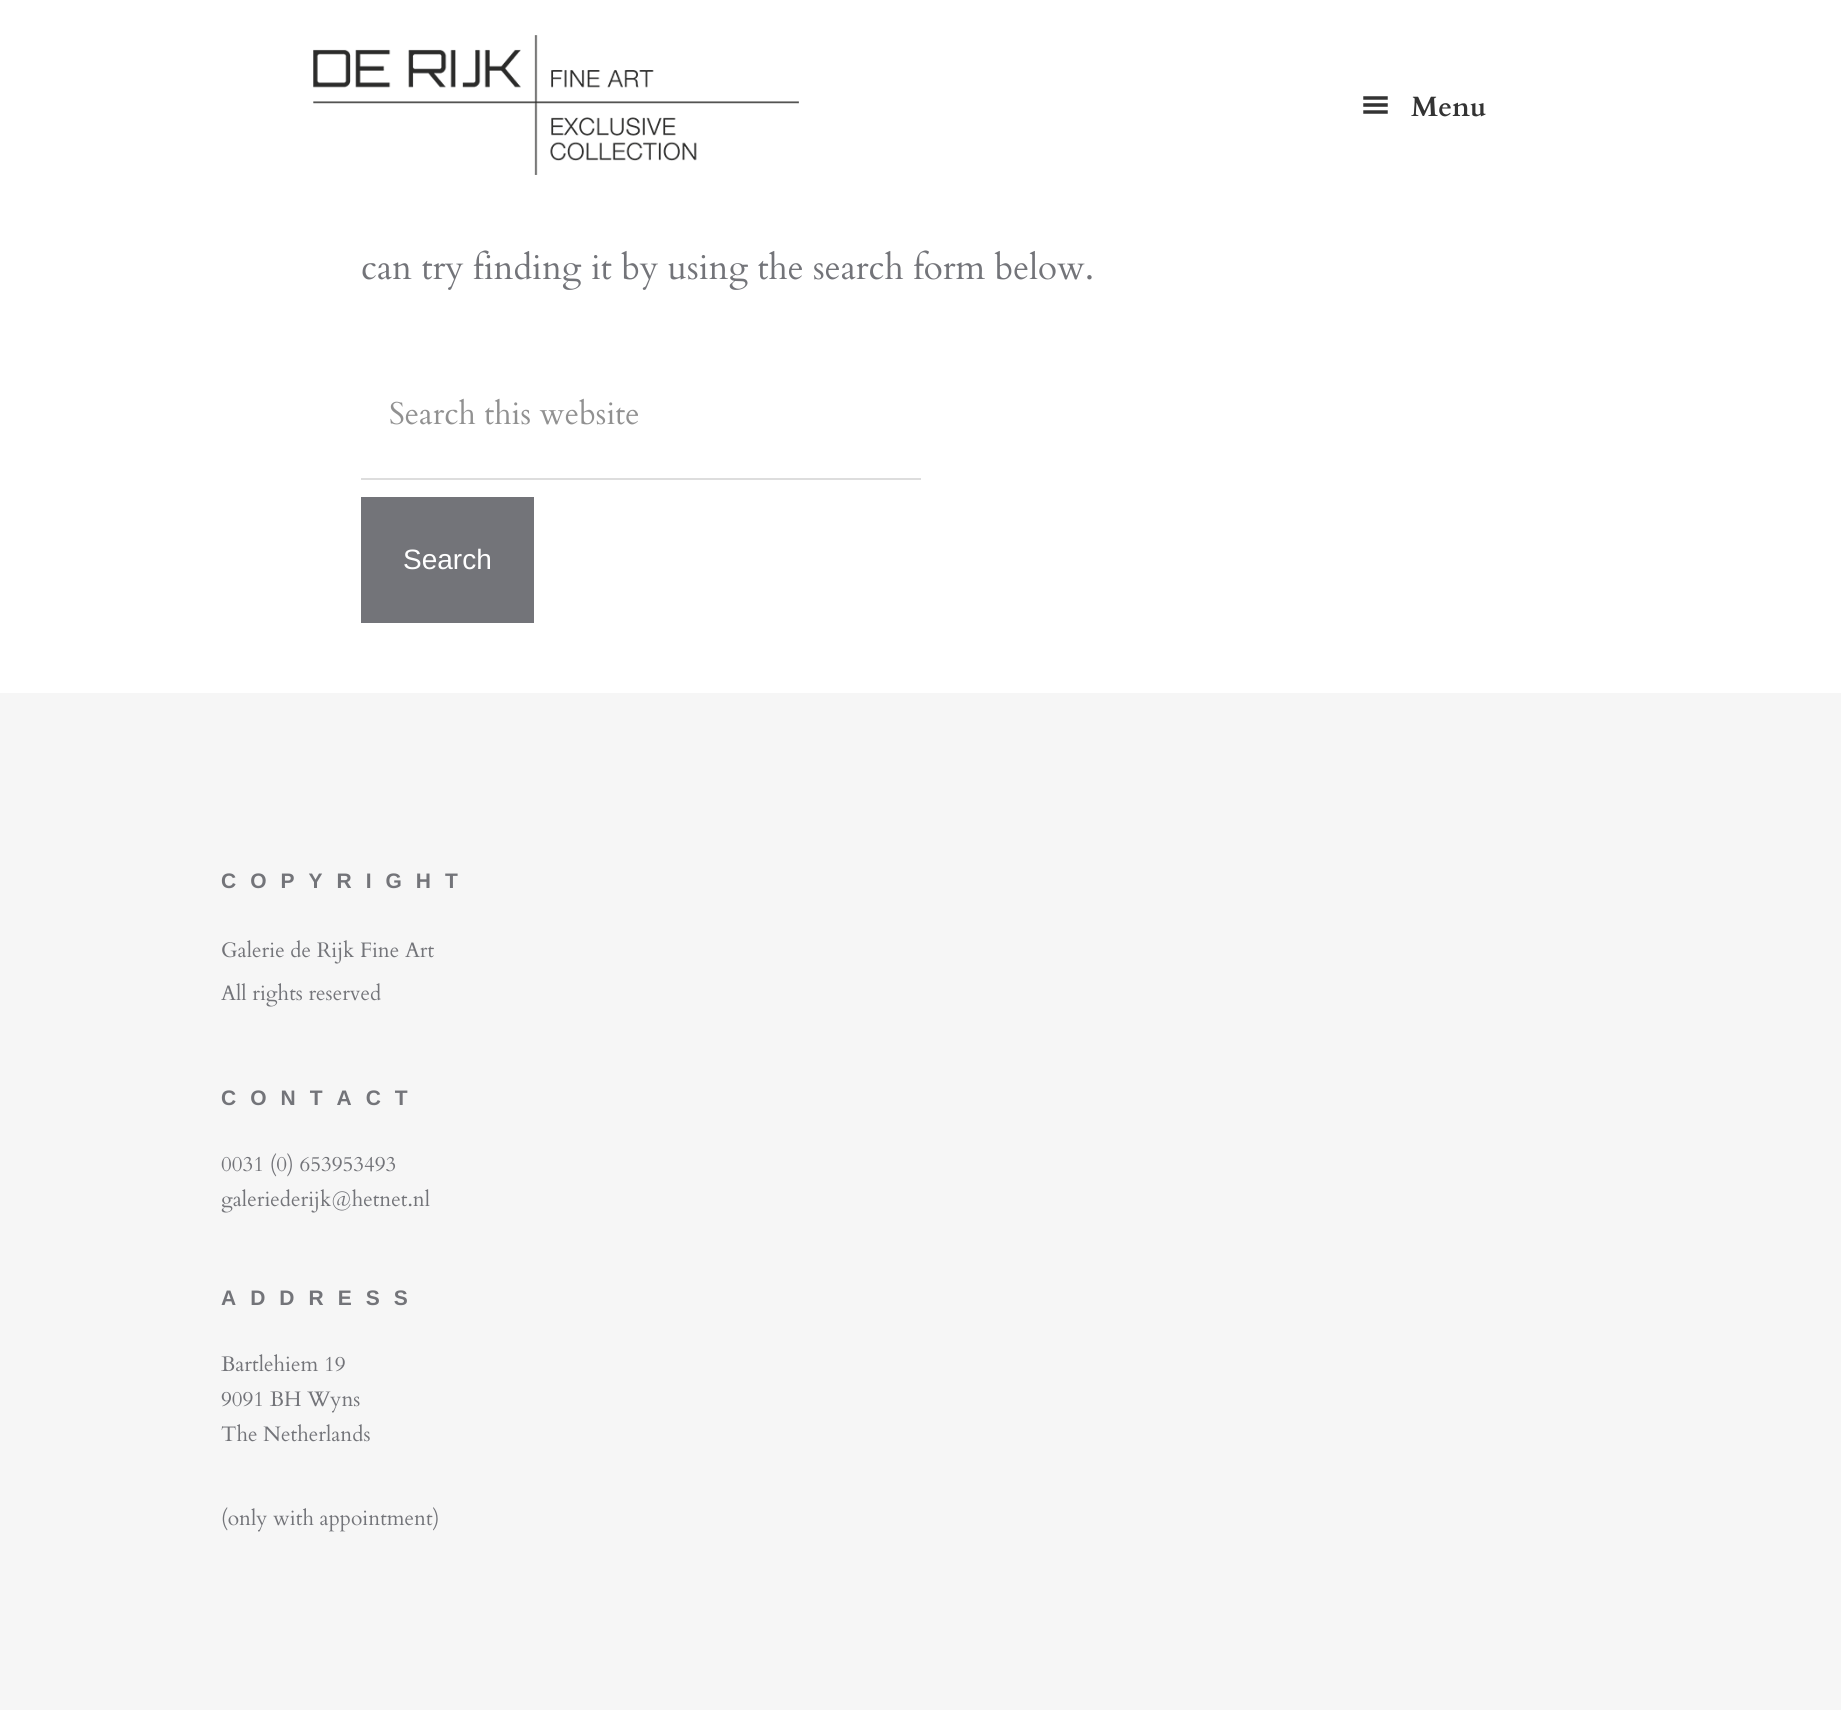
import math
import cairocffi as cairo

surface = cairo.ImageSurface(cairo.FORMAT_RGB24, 1841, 1717)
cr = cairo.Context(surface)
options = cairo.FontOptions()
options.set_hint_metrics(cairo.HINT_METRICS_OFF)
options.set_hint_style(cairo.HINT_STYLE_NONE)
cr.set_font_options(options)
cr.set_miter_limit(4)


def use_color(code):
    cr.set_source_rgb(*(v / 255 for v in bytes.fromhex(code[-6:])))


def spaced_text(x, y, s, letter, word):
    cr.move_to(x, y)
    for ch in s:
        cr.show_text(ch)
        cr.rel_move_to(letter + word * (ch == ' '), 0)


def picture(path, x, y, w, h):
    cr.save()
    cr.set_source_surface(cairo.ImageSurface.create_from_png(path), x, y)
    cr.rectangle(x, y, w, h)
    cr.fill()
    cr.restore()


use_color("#ffffff")
cr.paint()
picture("img1.png", 313, 35, 486, 140)
picture("img2.png", 1363, 96, 25, 18)
cr.select_font_face("Cardo", cairo.FONT_SLANT_NORMAL, cairo.FONT_WEIGHT_BOLD)
cr.set_font_size(28)
use_color("#333333")
cr.move_to(1411, 116)
cr.show_text("Menu")
cr.select_font_face("Cardo")
cr.set_font_size(35)
use_color("#737479")
cr.move_to(361, 279)
cr.show_text("can try finding it by using the search form below.")
use_color("#dddddd")
cr.rectangle(361, 478, 560, 2)
cr.fill()
cr.set_font_size(31.5)
use_color("#919191")
cr.move_to(389, 424)
cr.show_text("Search this website")
use_color("#737479")
cr.rectangle(361, 497, 173, 126)
cr.fill()
cr.select_font_face("Liberation Sans")
cr.set_font_size(28)
use_color("#ffffff")
cr.move_to(403, 569)
cr.show_text("Search")
use_color("#f6f6f6")
cr.rectangle(0, 693, 1841, 1017)
cr.fill()
cr.select_font_face("Liberation Sans", cairo.FONT_SLANT_NORMAL, cairo.FONT_WEIGHT_BOLD)
cr.set_font_size(21)
use_color("#737479")
spaced_text(221, 888, "COPYRIGHT", 14, 0)
cr.select_font_face("Cardo")
cr.move_to(221, 957)
cr.show_text("Galerie de Rijk Fine Art")
cr.move_to(221, 1000)
cr.show_text("All rights reserved")
cr.select_font_face("Liberation Sans", cairo.FONT_SLANT_NORMAL, cairo.FONT_WEIGHT_BOLD)
spaced_text(221, 1105, "CONTACT", 14, 0)
cr.select_font_face("Cardo")
cr.move_to(221, 1171)
cr.show_text("0031 (0) 653953493")
cr.move_to(221, 1206)
cr.show_text("galeriederijk@hetnet.nl")
cr.select_font_face("Liberation Sans", cairo.FONT_SLANT_NORMAL, cairo.FONT_WEIGHT_BOLD)
spaced_text(221, 1305, "ADDRESS", 14, 0)
cr.select_font_face("Cardo")
cr.move_to(221, 1371)
cr.show_text("Bartlehiem 19")
cr.move_to(221, 1406)
cr.show_text("9091 BH Wyns")
cr.move_to(221, 1441)
cr.show_text("The Netherlands")
cr.move_to(221, 1525)
cr.show_text("(only with appointment)")
surface.write_to_png("result.png")
